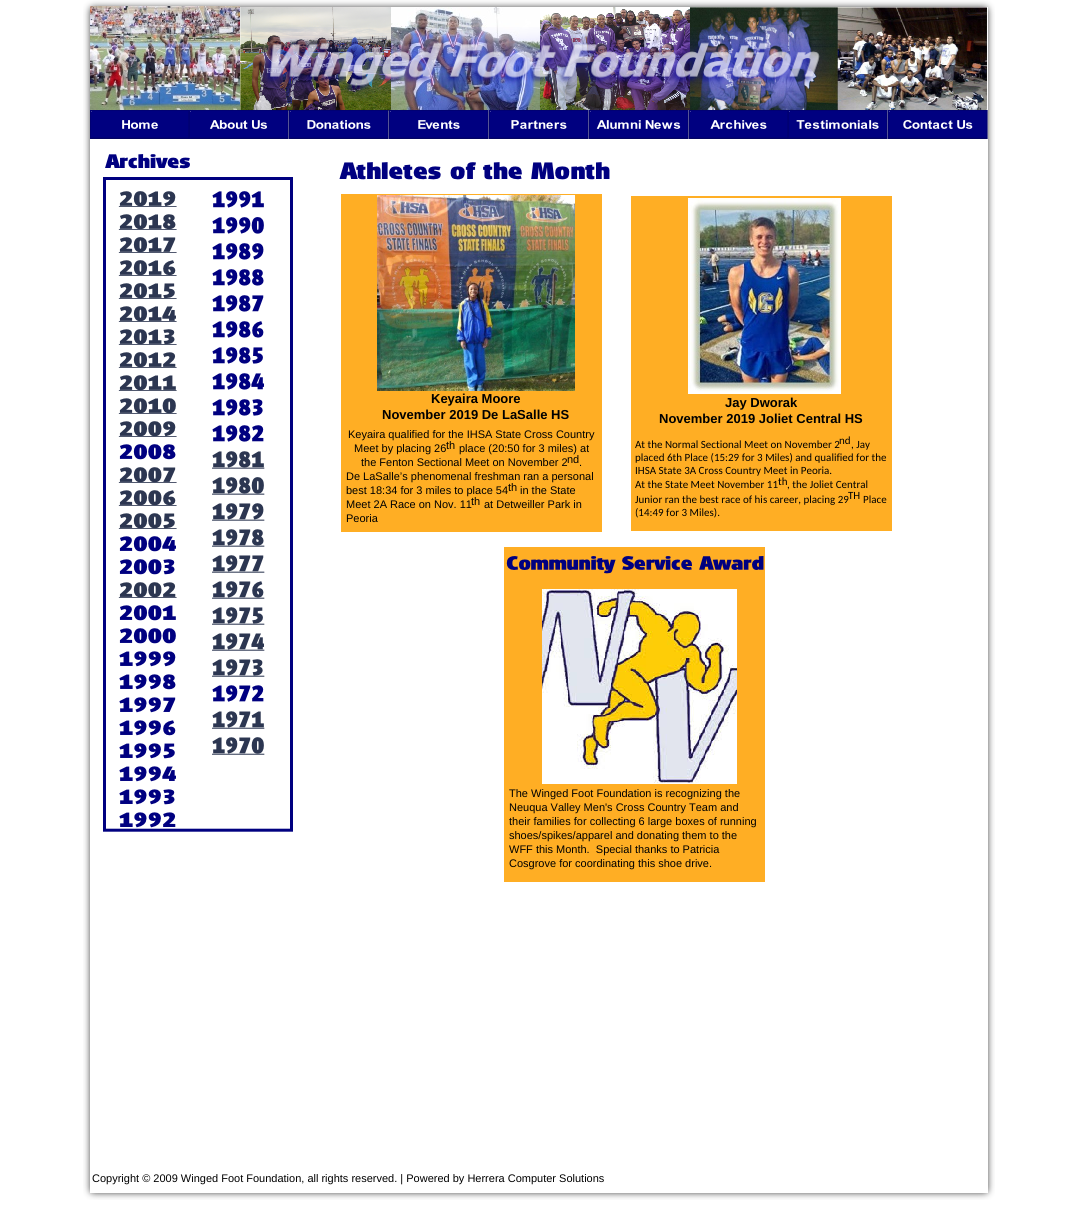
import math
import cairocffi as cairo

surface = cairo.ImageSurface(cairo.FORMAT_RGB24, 1071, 1222)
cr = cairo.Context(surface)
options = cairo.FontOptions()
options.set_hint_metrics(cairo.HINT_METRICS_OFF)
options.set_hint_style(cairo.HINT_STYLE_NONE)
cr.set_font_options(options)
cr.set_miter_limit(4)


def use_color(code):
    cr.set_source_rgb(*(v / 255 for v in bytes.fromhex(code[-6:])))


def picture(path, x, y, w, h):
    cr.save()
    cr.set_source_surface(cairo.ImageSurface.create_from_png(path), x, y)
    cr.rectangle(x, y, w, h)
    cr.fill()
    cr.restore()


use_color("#ffffff")
cr.paint()
picture("img1.png", 83, 0, 912, 1200)
picture("img2.png", 90, 6, 150, 104)
picture("img3.png", 391, 7, 149, 103)
picture("img4.png", 540, 7, 150, 103)
picture("img5.png", 690, 7, 297, 104)
picture("img6.png", 252, 27, 583, 74)
picture("img7.png", 90, 110, 100, 29)
picture("img8.png", 189, 110, 100, 29)
picture("img9.png", 289, 110, 100, 29)
picture("img10.png", 389, 110, 100, 29)
picture("img11.png", 489, 110, 100, 29)
picture("img12.png", 589, 110, 100, 29)
picture("img13.png", 689, 110, 100, 29)
picture("img14.png", 788, 110, 100, 29)
picture("img15.png", 888, 110, 100, 29)
picture("img16.png", 105, 154, 85, 15)
picture("img17.png", 339, 162, 271, 18)
picture("img18.png", 103, 177, 190, 655)
use_color("#ffae24")
cr.rectangle(341, 194, 261, 338)
cr.fill()
picture("img19.png", 377, 195, 198, 196)
cr.rectangle(631, 196, 261, 335)
cr.fill()
picture("img20.png", 688, 198, 153, 196)
cr.select_font_face("Liberation Sans", cairo.FONT_SLANT_NORMAL, cairo.FONT_WEIGHT_BOLD)
cr.set_font_size(13)
use_color("#000000")
cr.move_to(431, 403)
cr.show_text("Keyaira Moore")
cr.move_to(382, 419)
cr.show_text("November 2019 De LaSalle HS")
cr.move_to(725, 407)
cr.show_text("Jay Dworak")
cr.move_to(659, 423)
cr.show_text("November 2019 Joliet Central HS")
cr.select_font_face("Liberation Sans")
cr.set_font_size(11)
cr.move_to(348, 438)
cr.show_text("Keyaira qualified for the IHSA State Cross Country")
cr.move_to(354, 452)
cr.show_text("Meet by placing 26")
cr.move_to(446, 449)
cr.show_text("th")
cr.move_to(459, 452)
cr.show_text("place (20:50 for 3 miles) at")
cr.move_to(361, 466)
cr.show_text("the Fenton Sectional Meet on November 2")
cr.move_to(567, 463)
cr.show_text("nd")
cr.move_to(579, 466)
cr.show_text(".")
cr.move_to(346, 480)
cr.show_text("De LaSalle’s phenomenal freshman ran a personal")
cr.move_to(346, 494)
cr.show_text("best 18:34 for 3 miles to place 54")
cr.move_to(508, 491)
cr.show_text("th")
cr.move_to(520, 494)
cr.show_text("in the State")
cr.move_to(346, 508)
cr.show_text("Meet 2A Race on Nov. 11")
cr.move_to(471, 505)
cr.show_text("th")
cr.move_to(484, 508)
cr.show_text("at Detweiller Park in")
cr.move_to(346, 522)
cr.show_text("Peoria")
cr.select_font_face("Carlito")
cr.move_to(635, 448)
cr.show_text("At the Normal Sectional Meet on November 2")
cr.move_to(839, 444)
cr.show_text("nd")
cr.move_to(851, 448)
cr.show_text(", Jay")
cr.move_to(635, 461)
cr.show_text("placed 6th Place (15:29 for 3 Miles) and qualified for the")
cr.move_to(635, 474)
cr.show_text("IHSA State 3A Cross Country Meet in Peoria.")
cr.move_to(635, 488)
cr.show_text("At the State Meet November 11")
cr.move_to(778, 485)
cr.show_text("th")
cr.move_to(787, 488)
cr.show_text(", the Joliet Central")
cr.move_to(635, 503)
cr.show_text("Junior ran the best race of his career, placing 29")
cr.move_to(848, 499)
cr.show_text("TH")
cr.move_to(863, 503)
cr.show_text("Place")
cr.move_to(635, 516)
cr.show_text("(14:49 for 3 Miles).")
use_color("#ffae24")
cr.rectangle(504, 547, 261, 335)
cr.fill()
picture("img21.png", 506, 556, 258, 18)
picture("img22.png", 542, 589, 195, 195)
cr.select_font_face("Liberation Sans")
use_color("#000000")
cr.move_to(509, 797)
cr.show_text("The Winged Foot Foundation is recognizing the")
cr.move_to(509, 811)
cr.show_text("Neuqua Valley Men's Cross Country Team and")
cr.move_to(509, 825)
cr.show_text("their families for collecting 6 large boxes of running")
cr.move_to(509, 839)
cr.show_text("shoes/spikes/apparel and donating them to the")
cr.move_to(509, 853)
cr.show_text("WFF this Month.  Special thanks to Patricia")
cr.move_to(509, 867)
cr.show_text("Cosgrove for coordinating this shoe drive.")
cr.move_to(92, 1182)
cr.show_text("Copyright © 2009 Winged Foot Foundation, all rights reserved. | Powered by Herrera Computer Solutions")
surface.write_to_png("result.png")
